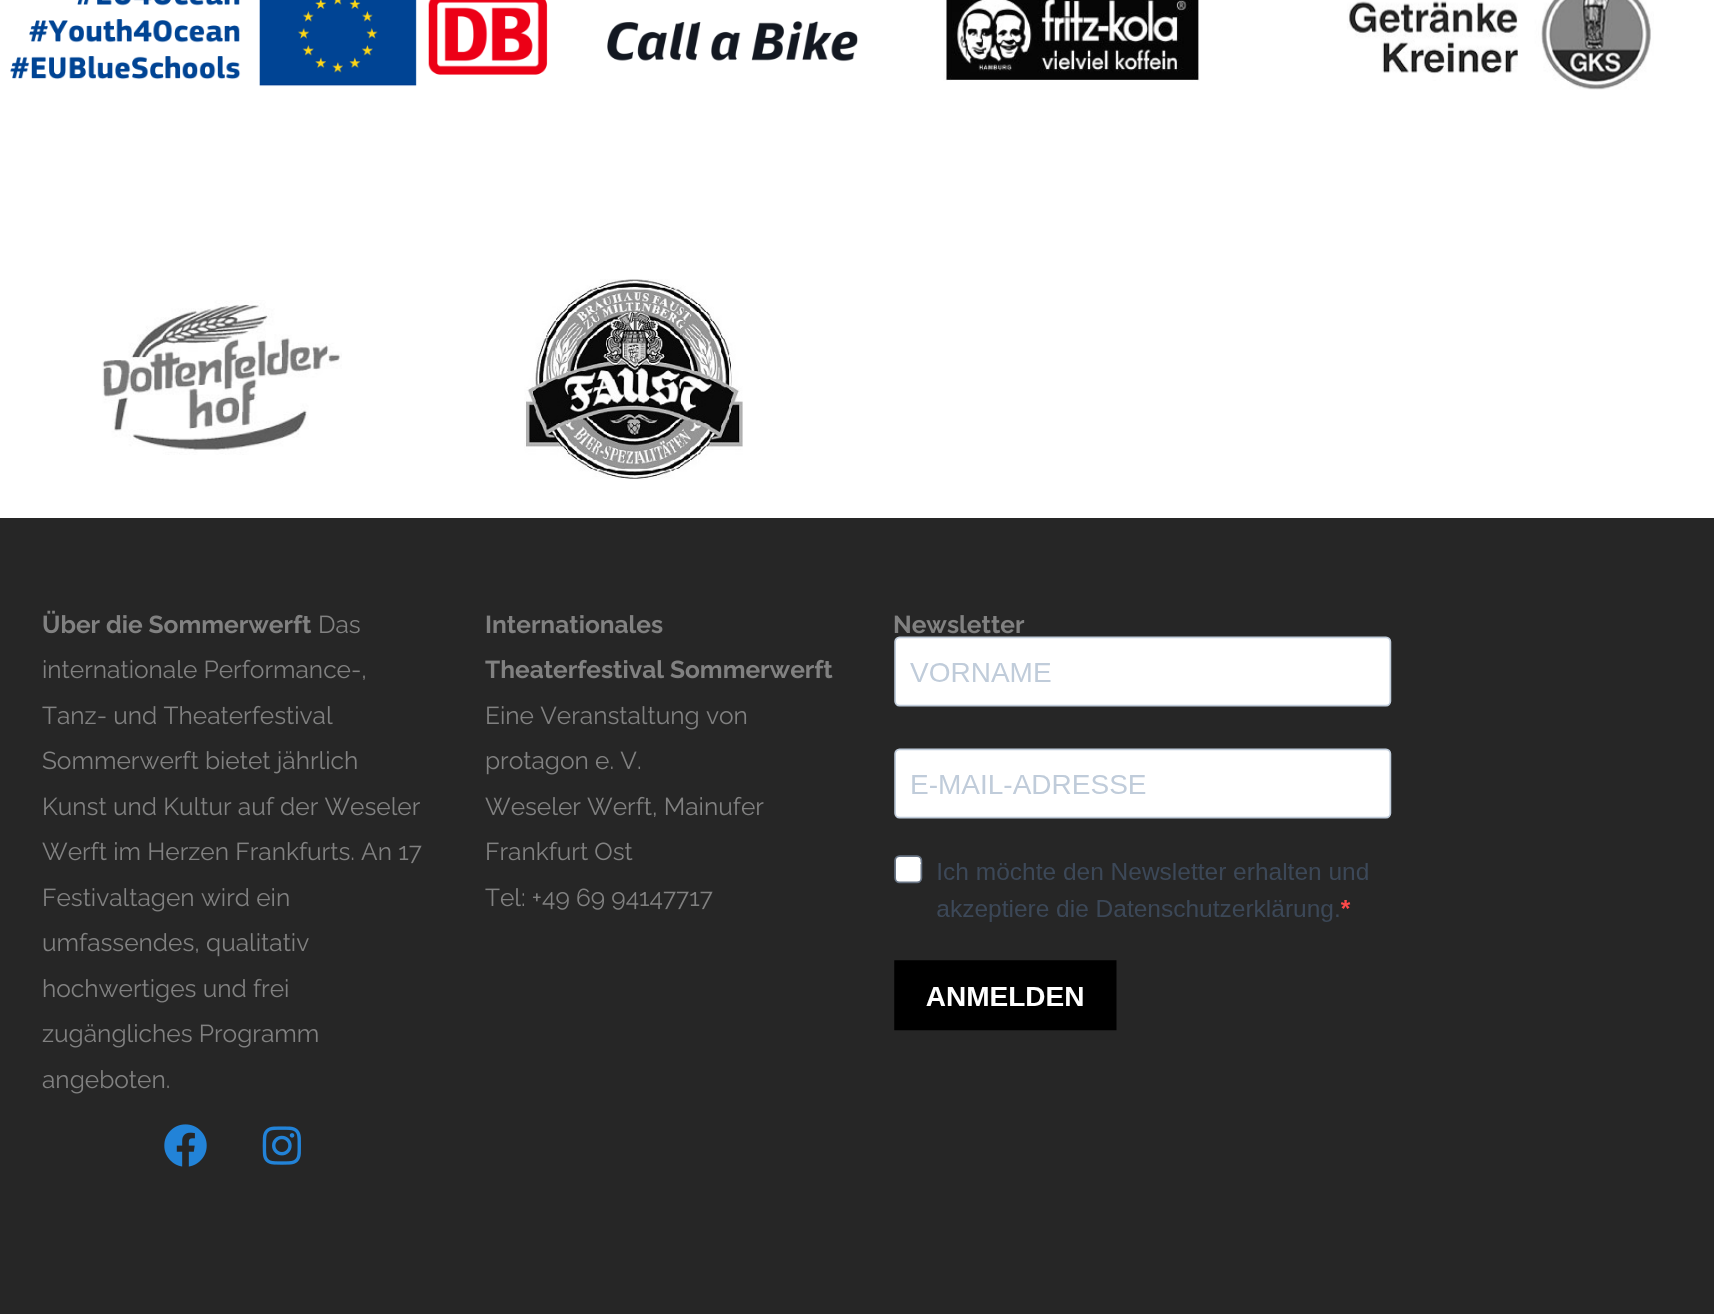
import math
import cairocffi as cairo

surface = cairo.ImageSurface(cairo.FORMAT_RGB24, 1714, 1314)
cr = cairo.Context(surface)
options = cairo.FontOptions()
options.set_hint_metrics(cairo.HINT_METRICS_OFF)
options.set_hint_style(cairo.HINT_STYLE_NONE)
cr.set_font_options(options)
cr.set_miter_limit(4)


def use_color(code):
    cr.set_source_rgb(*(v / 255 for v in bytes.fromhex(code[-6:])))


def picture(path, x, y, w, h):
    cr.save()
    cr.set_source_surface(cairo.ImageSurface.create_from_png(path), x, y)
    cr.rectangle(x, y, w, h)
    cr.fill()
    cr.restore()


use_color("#ffffff")
cr.paint()
picture("img1.png", 10, 0, 407, 87)
picture("img2.png", 428, 0, 430, 75)
picture("img3.png", 857, 0, 343, 81)
picture("img4.png", 1347, 0, 307, 90)
picture("img5.png", 102, 300, 240, 155)
picture("img6.png", 524, 279, 219, 201)
use_color("#262626")
cr.rectangle(0, 518, 1714, 796)
cr.fill()
cr.select_font_face("Raleway", cairo.FONT_SLANT_NORMAL, cairo.FONT_WEIGHT_BOLD)
cr.set_font_size(24.5)
use_color("#818181")
cr.move_to(42, 633)
cr.show_text("Über die Sommerwerft")
cr.select_font_face("Raleway")
cr.move_to(318, 633)
cr.show_text("Das")
cr.move_to(42, 678)
cr.show_text("internationale Performance-,")
cr.move_to(42, 724)
cr.show_text("Tanz- und Theaterfestival")
cr.move_to(42, 769)
cr.show_text("Sommerwerft bietet jährlich")
cr.move_to(42, 815)
cr.show_text("Kunst und Kultur auf der Weseler")
cr.move_to(42, 860)
cr.show_text("Werft im Herzen Frankfurts. An 17")
cr.move_to(42, 906)
cr.show_text("Festivaltagen wird ein")
cr.move_to(42, 951)
cr.show_text("umfassendes, qualitativ")
cr.move_to(42, 997)
cr.show_text("hochwertiges und frei")
cr.move_to(42, 1042)
cr.show_text("zugängliches Programm")
cr.move_to(42, 1088)
cr.show_text("angeboten.")
picture("img7.png", 164, 1124, 43, 43)
picture("img8.png", 262, 1126, 39, 39)
cr.select_font_face("Raleway", cairo.FONT_SLANT_NORMAL, cairo.FONT_WEIGHT_BOLD)
cr.move_to(485, 633)
cr.show_text("Internationales")
cr.move_to(485, 678)
cr.show_text("Theaterfestival Sommerwerft")
cr.select_font_face("Raleway")
cr.move_to(485, 724)
cr.show_text("Eine Veranstaltung von")
cr.move_to(485, 769)
cr.show_text("protagon e. V.")
cr.move_to(485, 815)
cr.show_text("Weseler Werft, Mainufer")
cr.move_to(485, 860)
cr.show_text("Frankfurt Ost")
cr.move_to(485, 906)
cr.show_text("Tel: +49 69 94147717")
cr.select_font_face("Raleway", cairo.FONT_SLANT_NORMAL, cairo.FONT_WEIGHT_BOLD)
cr.move_to(893, 633)
cr.show_text("Newsletter")
picture("img9.png", 894, 636, 498, 395)
surface.write_to_png("result.png")
